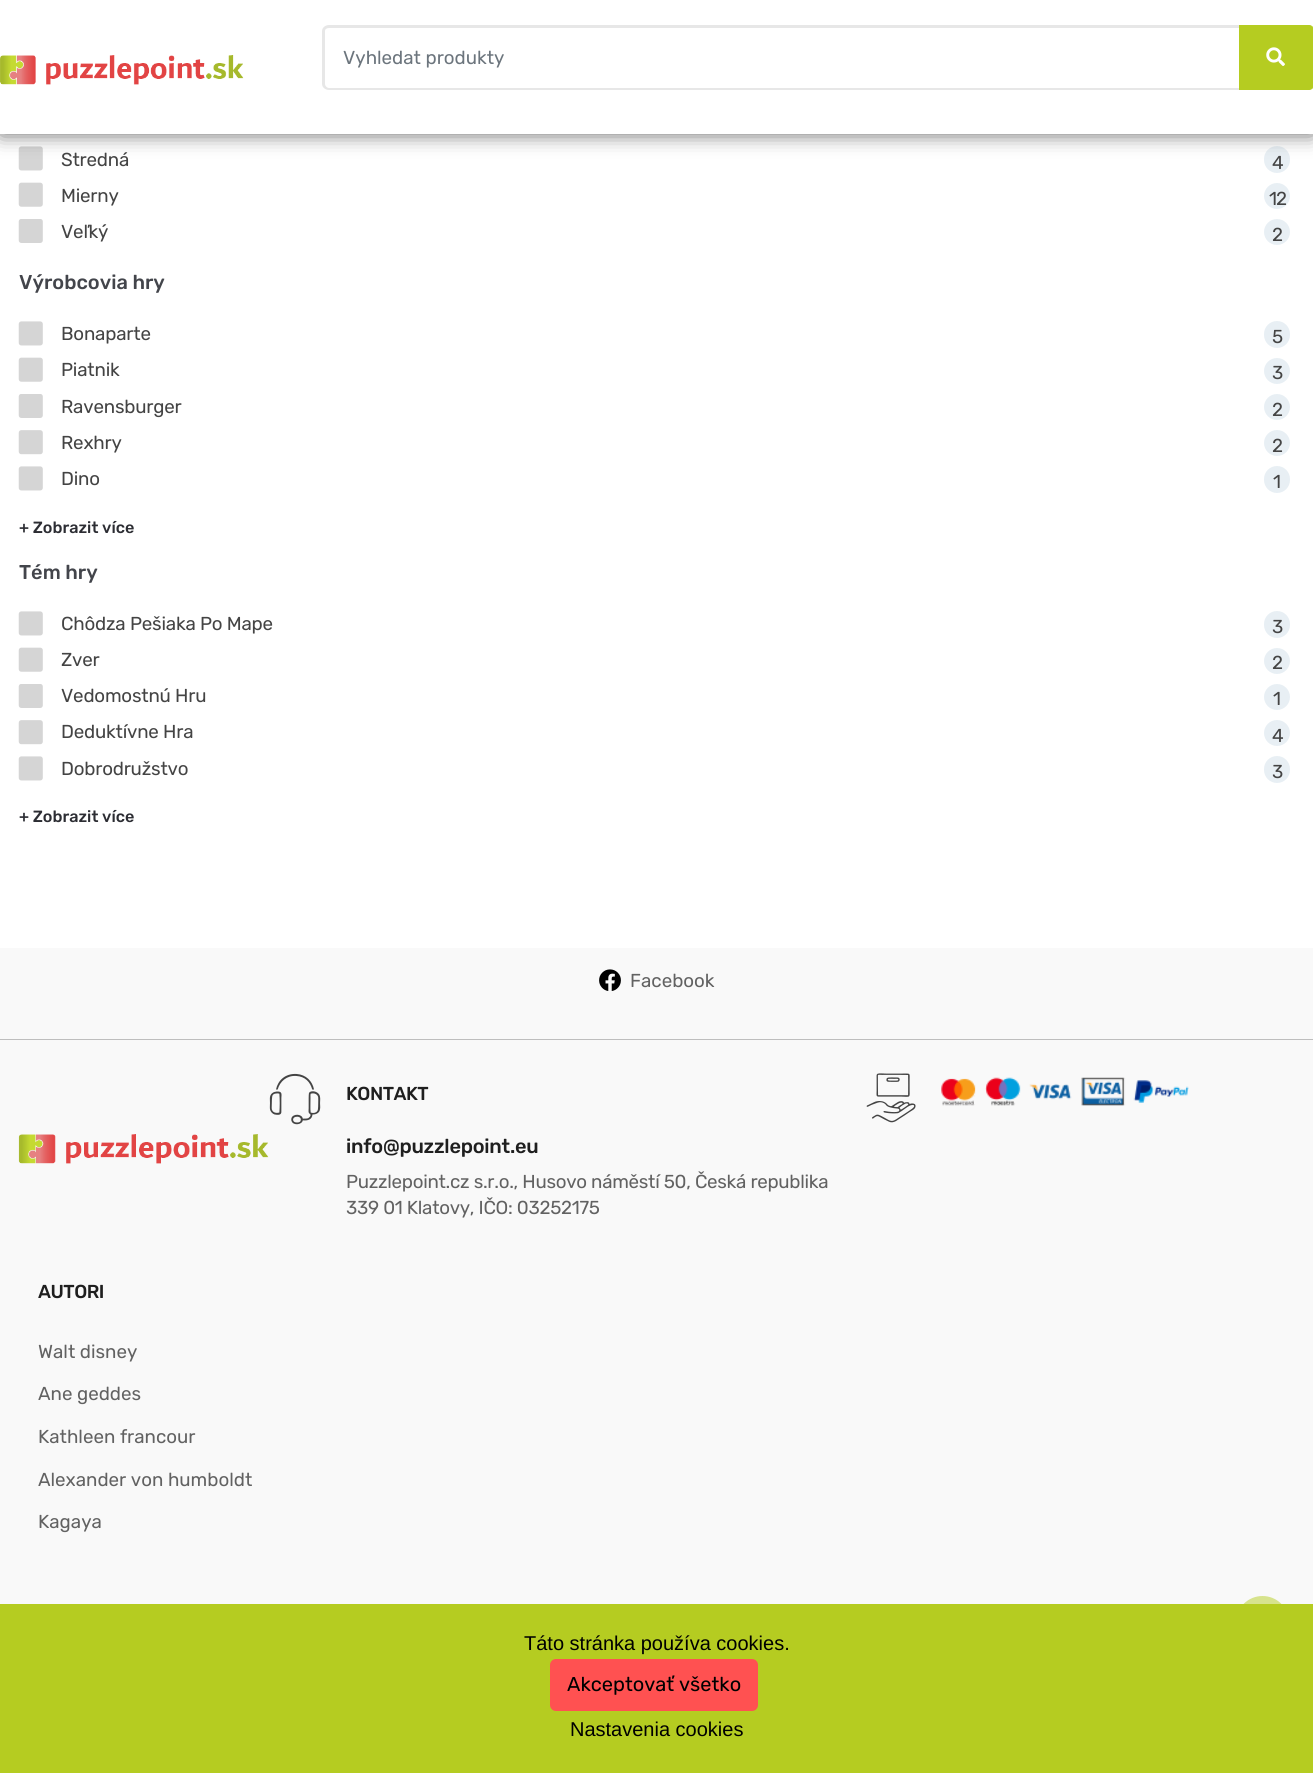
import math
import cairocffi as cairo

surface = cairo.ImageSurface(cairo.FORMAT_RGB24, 1313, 1773)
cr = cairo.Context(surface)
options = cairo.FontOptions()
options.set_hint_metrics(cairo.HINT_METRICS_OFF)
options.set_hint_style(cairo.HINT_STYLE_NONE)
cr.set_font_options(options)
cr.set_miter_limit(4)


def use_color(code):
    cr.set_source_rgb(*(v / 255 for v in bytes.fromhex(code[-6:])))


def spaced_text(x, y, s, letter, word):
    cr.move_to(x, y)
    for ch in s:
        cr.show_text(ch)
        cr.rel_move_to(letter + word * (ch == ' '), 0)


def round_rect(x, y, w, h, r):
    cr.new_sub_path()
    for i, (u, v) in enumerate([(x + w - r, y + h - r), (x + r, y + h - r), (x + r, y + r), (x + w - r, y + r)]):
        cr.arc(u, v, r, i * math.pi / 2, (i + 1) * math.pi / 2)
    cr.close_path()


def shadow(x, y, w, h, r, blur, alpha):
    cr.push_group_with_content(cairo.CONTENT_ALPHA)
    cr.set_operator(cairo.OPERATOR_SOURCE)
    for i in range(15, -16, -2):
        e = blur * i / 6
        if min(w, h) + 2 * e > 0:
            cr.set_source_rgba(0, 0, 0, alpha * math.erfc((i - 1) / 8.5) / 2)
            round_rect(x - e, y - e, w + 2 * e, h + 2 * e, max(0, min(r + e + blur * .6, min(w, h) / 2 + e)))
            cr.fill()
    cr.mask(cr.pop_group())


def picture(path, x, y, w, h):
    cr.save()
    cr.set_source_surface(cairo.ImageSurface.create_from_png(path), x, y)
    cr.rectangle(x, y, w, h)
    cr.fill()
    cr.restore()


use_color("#ffffff")
cr.paint()
picture("img3.png", 18, 146, 25, 25)
use_color("#e8eff4")
round_rect(1264, 146, 26, 27, 13)
cr.fill()
use_color("#000000")
shadow(1, 1, 1312, 132, 0, 10.5, 0.66)
use_color("#ffffff")
cr.rectangle(0, 0, 1313, 134)
cr.fill()
picture("img1.png", 0, 55, 244, 30)
use_color("#e7e7e7")
cr.set_fill_rule(cairo.FILL_RULE_EVEN_ODD)
cr.new_path()
cr.move_to(329, 25)
cr.line_to(1240, 25)
cr.line_to(1240, 90)
cr.line_to(329, 90)
cr.curve_to(325, 90, 322, 87, 322, 84)
cr.line_to(322, 31)
cr.curve_to(322, 28, 325, 25, 329, 25)
cr.close_path()
cr.move_to(329, 28)
cr.line_to(1240, 28)
cr.line_to(1240, 88)
cr.line_to(329, 88)
cr.curve_to(327, 88, 325, 86, 325, 84)
cr.line_to(325, 31)
cr.curve_to(325, 29, 327, 28, 329, 28)
cr.close_path()
cr.fill()
cr.select_font_face("Rubik")
cr.set_font_size(18.75)
use_color("#6c757d")
cr.move_to(343, 64)
cr.show_text("Vyhledat produkty")
use_color("#b5cc21")
cr.new_path()
cr.move_to(1239.5, 25.5)
cr.line_to(1309, 25.5)
cr.curve_to(1311.5, 25.5, 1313.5, 27.5, 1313.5, 30)
cr.line_to(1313.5, 85)
cr.curve_to(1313.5, 87.5, 1311.5, 89.5, 1309, 89.5)
cr.line_to(1239.5, 89.5)
cr.close_path()
cr.fill_preserve()
cr.set_line_width(1)
cr.stroke()
picture("img2.png", 1266, 47, 19, 19)
use_color("#444444")
spaced_text(61, 166, "Stredná", -0.2, 0)
spaced_text(1272, 169, "4", -1, 0)
picture("img4.png", 18, 182, 25, 25)
spaced_text(61, 202, "Mierny", -0.2, 0)
use_color("#e8eff4")
cr.new_path()
cr.arc(1277, 196, 13, 0, 2 * math.pi)
cr.fill()
use_color("#444444")
spaced_text(1269, 205, "12", -1, 0)
picture("img5.png", 18, 219, 25, 24)
spaced_text(61, 238, "Veľký", -0.2, 0)
use_color("#e8eff4")
cr.new_path()
cr.arc(1277, 232, 13, 0, 2 * math.pi)
cr.fill()
use_color("#444444")
spaced_text(1272, 241, "2", -1, 0)
cr.select_font_face("Rubik Medium")
cr.set_font_size(20)
use_color("#43454b")
cr.move_to(19, 289)
cr.show_text("Výrobcovia hry")
picture("img3.png", 18, 321, 25, 25)
cr.select_font_face("Rubik")
cr.set_font_size(18.75)
use_color("#444444")
spaced_text(61, 340, "Bonaparte", -0.2, 0)
use_color("#e8eff4")
round_rect(1264, 321, 26, 27, 13)
cr.fill()
use_color("#444444")
spaced_text(1272, 343, "5", -1, 0)
picture("img4.png", 18, 357, 25, 25)
spaced_text(61, 376, "Piatnik", -0.2, 0)
use_color("#e8eff4")
cr.new_path()
cr.arc(1277, 371, 13, 0, 2 * math.pi)
cr.fill()
use_color("#444444")
spaced_text(1272, 379, "3", -1, 0)
picture("img5.png", 18, 394, 25, 24)
spaced_text(61, 413, "Ravensburger", -0.2, 0)
use_color("#e8eff4")
cr.new_path()
cr.arc(1277, 407, 13, 0, 2 * math.pi)
cr.fill()
use_color("#444444")
spaced_text(1272, 416, "2", -1, 0)
picture("img6.png", 18, 430, 25, 25)
spaced_text(61, 449, "Rexhry", -0.2, 0)
use_color("#e8eff4")
cr.new_path()
cr.arc(1277, 443, 13, 0, 2 * math.pi)
cr.fill()
use_color("#444444")
spaced_text(1272, 452, "2", -1, 0)
picture("img3.png", 18, 466, 25, 25)
spaced_text(61, 485, "Dino", -0.2, 0)
use_color("#e8eff4")
round_rect(1264, 466, 26, 27, 13)
cr.fill()
use_color("#444444")
spaced_text(1273, 488, "1", -1, 0)
cr.select_font_face("Rubik Medium")
cr.set_font_size(16.25)
use_color("#2c2d33")
cr.move_to(19, 533)
cr.show_text("+ Zobrazit více")
cr.set_font_size(20)
use_color("#43454b")
cr.move_to(19, 579)
cr.show_text("Tém hry")
picture("img3.png", 18, 611, 25, 25)
cr.select_font_face("Rubik")
cr.set_font_size(18.75)
use_color("#444444")
spaced_text(61, 630, "Chôdza Pešiaka Po Mape", -0.2, 0)
use_color("#e8eff4")
round_rect(1264, 611, 26, 27, 13)
cr.fill()
use_color("#444444")
spaced_text(1272, 633, "3", -1, 0)
picture("img4.png", 18, 647, 25, 25)
spaced_text(61, 666, "Zver", -0.2, 0)
use_color("#e8eff4")
cr.new_path()
cr.arc(1277, 661, 13, 0, 2 * math.pi)
cr.fill()
use_color("#444444")
spaced_text(1272, 669, "2", -1, 0)
picture("img5.png", 18, 684, 25, 24)
spaced_text(61, 702, "Vedomostnú Hru", -0.2, 0)
use_color("#e8eff4")
cr.new_path()
cr.arc(1277, 697, 13, 0, 2 * math.pi)
cr.fill()
use_color("#444444")
spaced_text(1273, 705, "1", -1, 0)
picture("img6.png", 18, 720, 25, 25)
spaced_text(61, 738, "Deduktívne Hra", -0.2, 0)
use_color("#e8eff4")
cr.new_path()
cr.arc(1277, 733, 13, 0, 2 * math.pi)
cr.fill()
use_color("#444444")
spaced_text(1272, 742, "4", -1, 0)
picture("img3.png", 18, 756, 25, 25)
spaced_text(61, 775, "Dobrodružstvo", -0.2, 0)
use_color("#e8eff4")
round_rect(1264, 756, 26, 27, 13)
cr.fill()
use_color("#444444")
spaced_text(1272, 778, "3", -1, 0)
cr.select_font_face("Rubik Medium")
cr.set_font_size(16.25)
use_color("#2c2d33")
cr.move_to(19, 822)
cr.show_text("+ Zobrazit více")
use_color("#f9f9f9")
cr.rectangle(0, 948, 1313, 656)
cr.fill()
use_color("#bebebe")
cr.rectangle(0, 1039, 1313, 1)
cr.fill()
picture("img7.png", 599, 969, 22, 22)
cr.select_font_face("Rubik")
cr.set_font_size(18.75)
use_color("#626262")
cr.move_to(630, 987)
cr.show_text("Facebook")
picture("img8.png", 18, 1134, 251, 30)
picture("img9.png", 269, 1073, 52, 52)
cr.select_font_face("Rubik Medium")
use_color("#1f1f1f")
spaced_text(346, 1100, "KONTAKT", -0.5, 0)
cr.set_font_size(20)
spaced_text(346, 1153, "info@puzzlepoint.eu", -0.25, 0)
cr.select_font_face("Rubik")
cr.set_font_size(18.75)
use_color("#626262")
spaced_text(346, 1188, "Puzzlepoint.cz s.r.o., Husovo náměstí 50, Česká republika", -0.28, 0)
spaced_text(346, 1214, "339 01 Klatovy, IČO: 03252175", -0.28, 0)
picture("img10.png", 866, 1073, 50, 50)
picture("img11.png", 941, 1077, 248, 29)
cr.select_font_face("Rubik Medium")
use_color("#1f1f1f")
spaced_text(38, 1298, "AUTORI", -0.5, 0)
cr.select_font_face("Rubik")
use_color("#626262")
cr.move_to(38, 1358)
cr.show_text("Walt disney")
cr.move_to(38, 1400)
cr.show_text("Ane geddes")
cr.move_to(38, 1443)
cr.show_text("Kathleen francour")
cr.move_to(38, 1486)
cr.show_text("Alexander von humboldt")
cr.move_to(38, 1528)
cr.show_text("Kagaya")
use_color("#d7e38d")
cr.new_path()
cr.arc(1262.5, 1622.5, 26.5, 0, 2 * math.pi)
cr.fill()
use_color("#b5cc21")
cr.rectangle(0, 1604, 1313, 169)
cr.fill()
cr.select_font_face("Liberation Sans")
cr.set_font_size(20)
use_color("#000000")
cr.move_to(524, 1650)
cr.show_text("Táto stránka používa cookies.")
use_color("#ff5151")
round_rect(550, 1659, 208, 52, 6)
cr.fill()
cr.select_font_face("Rubik")
use_color("#000000")
cr.move_to(567, 1691)
cr.show_text("Akceptovať všetko")
cr.select_font_face("Liberation Sans")
cr.move_to(570, 1736)
cr.show_text("Nastavenia cookies")
surface.write_to_png("result.png")
